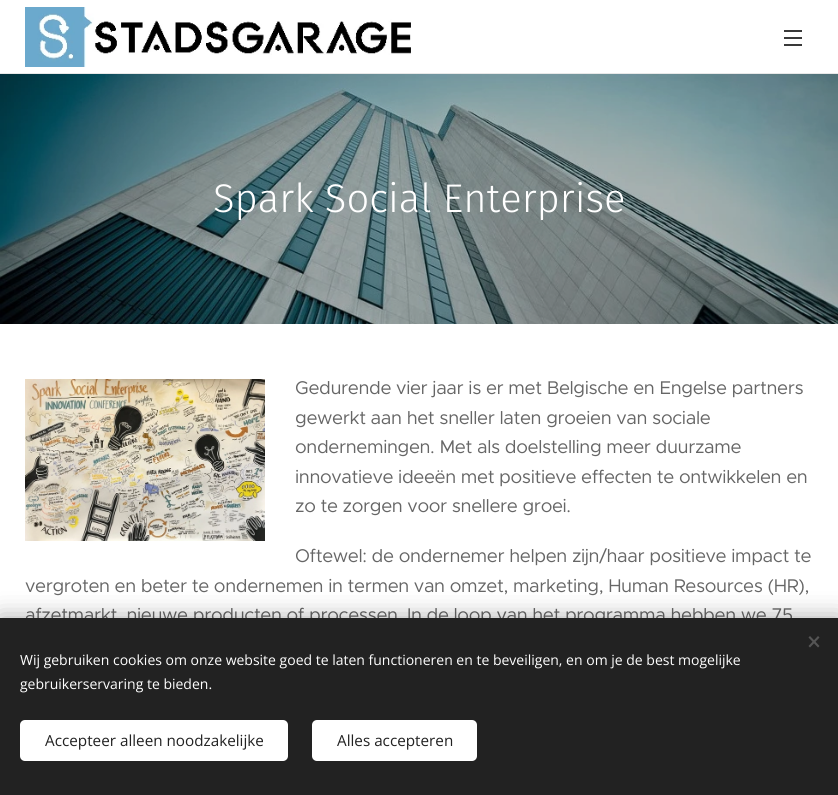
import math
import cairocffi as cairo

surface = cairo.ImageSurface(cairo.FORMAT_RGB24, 838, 795)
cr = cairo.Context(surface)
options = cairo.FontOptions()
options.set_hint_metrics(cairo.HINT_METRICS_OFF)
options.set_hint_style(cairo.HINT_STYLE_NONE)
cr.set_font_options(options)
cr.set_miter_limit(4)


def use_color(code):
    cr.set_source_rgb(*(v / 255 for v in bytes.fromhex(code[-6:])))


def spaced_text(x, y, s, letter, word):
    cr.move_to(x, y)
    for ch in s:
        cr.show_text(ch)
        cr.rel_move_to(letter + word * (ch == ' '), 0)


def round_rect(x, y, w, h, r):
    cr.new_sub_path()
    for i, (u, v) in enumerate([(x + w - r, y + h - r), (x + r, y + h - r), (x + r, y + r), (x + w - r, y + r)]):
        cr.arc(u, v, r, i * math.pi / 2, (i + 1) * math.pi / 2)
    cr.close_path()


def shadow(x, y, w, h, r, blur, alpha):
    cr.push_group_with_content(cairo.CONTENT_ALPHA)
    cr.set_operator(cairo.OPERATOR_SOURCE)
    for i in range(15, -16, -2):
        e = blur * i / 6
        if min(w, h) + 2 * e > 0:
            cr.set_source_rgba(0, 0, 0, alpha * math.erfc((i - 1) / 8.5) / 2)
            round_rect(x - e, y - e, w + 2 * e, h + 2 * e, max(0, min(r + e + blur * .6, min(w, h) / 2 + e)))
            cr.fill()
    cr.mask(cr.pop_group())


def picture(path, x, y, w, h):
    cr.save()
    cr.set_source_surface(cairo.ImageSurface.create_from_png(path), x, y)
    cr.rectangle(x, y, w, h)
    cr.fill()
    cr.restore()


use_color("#ffffff")
cr.paint()
picture("img1.png", 25, 7, 386, 60)
use_color("#393939")
cr.rectangle(784, 37, 18, 2)
cr.fill()
cr.rectangle(784, 30, 18, 2)
cr.fill()
cr.rectangle(784, 44, 18, 2)
cr.fill()
use_color("#e8e8e8")
cr.rectangle(0, 73, 838, 1)
cr.fill()
picture("img2.png", 0, 74, 838, 250)
cr.select_font_face("Fira Sans Light")
cr.set_font_size(40)
use_color("#ffffff")
cr.move_to(213, 212)
cr.show_text("Spark Social Enterprise")
picture("img3.png", 25, 379, 240, 162)
cr.select_font_face("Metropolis")
cr.set_font_size(18.5)
use_color("#666666")
spaced_text(295, 394, "Gedurende vier jaar is er met Belgische en Engelse partners", -0.37, 0)
spaced_text(295, 424, "gewerkt aan het sneller laten groeien van sociale", -0.37, 0)
spaced_text(295, 453, "ondernemingen. Met als doelstelling meer duurzame", -0.37, 0)
spaced_text(295, 483, "innovatieve ideeën met positieve effecten te ontwikkelen en", -0.37, 0)
spaced_text(295, 512, "zo te zorgen voor snellere groei.", -0.37, 0)
spaced_text(295, 562, "Oftewel: de ondernemer helpen zijn/haar positieve impact te", -0.37, 0)
spaced_text(25, 592, "vergroten en beter te ondernemen in termen van omzet, marketing, Human Resources (HR),", -0.37, 0)
spaced_text(25, 621, "afzetmarkt, nieuwe producten of processen. In de loop van het programma hebben we 75", -0.37, 0)
use_color("#000000")
shadow(0, 618, 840, 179, 0, 12.5, 0.33)
use_color("#222222")
cr.rectangle(0, 618, 838, 177)
cr.fill()
use_color("#555555")
cr.new_path()
cr.move_to(808.5, 646)
cr.line_to(818, 636)
cr.line_to(819.5, 637.5)
cr.line_to(810, 647.5)
cr.close_path()
cr.fill()
cr.new_path()
cr.move_to(810, 636)
cr.line_to(819.5, 646)
cr.line_to(818, 647.5)
cr.line_to(808.5, 637.5)
cr.close_path()
cr.fill()
cr.select_font_face("Open Sans")
cr.set_font_size(14)
use_color("#ffffff")
cr.move_to(20, 665)
cr.show_text("Wij gebruiken cookies om onze website goed te laten functioneren en te beveiligen, en om je de best mogelijke")
cr.move_to(20, 689)
cr.show_text("gebruikerservaring te bieden.")
round_rect(20, 720, 268, 41, 5)
cr.fill()
cr.set_font_size(15.25)
use_color("#222222")
cr.move_to(45, 746)
cr.show_text("Accepteer alleen noodzakelijke")
use_color("#ffffff")
round_rect(312, 720, 165, 41, 5)
cr.fill()
use_color("#222222")
cr.move_to(337, 746)
cr.show_text("Alles accepteren")
surface.write_to_png("result.png")
